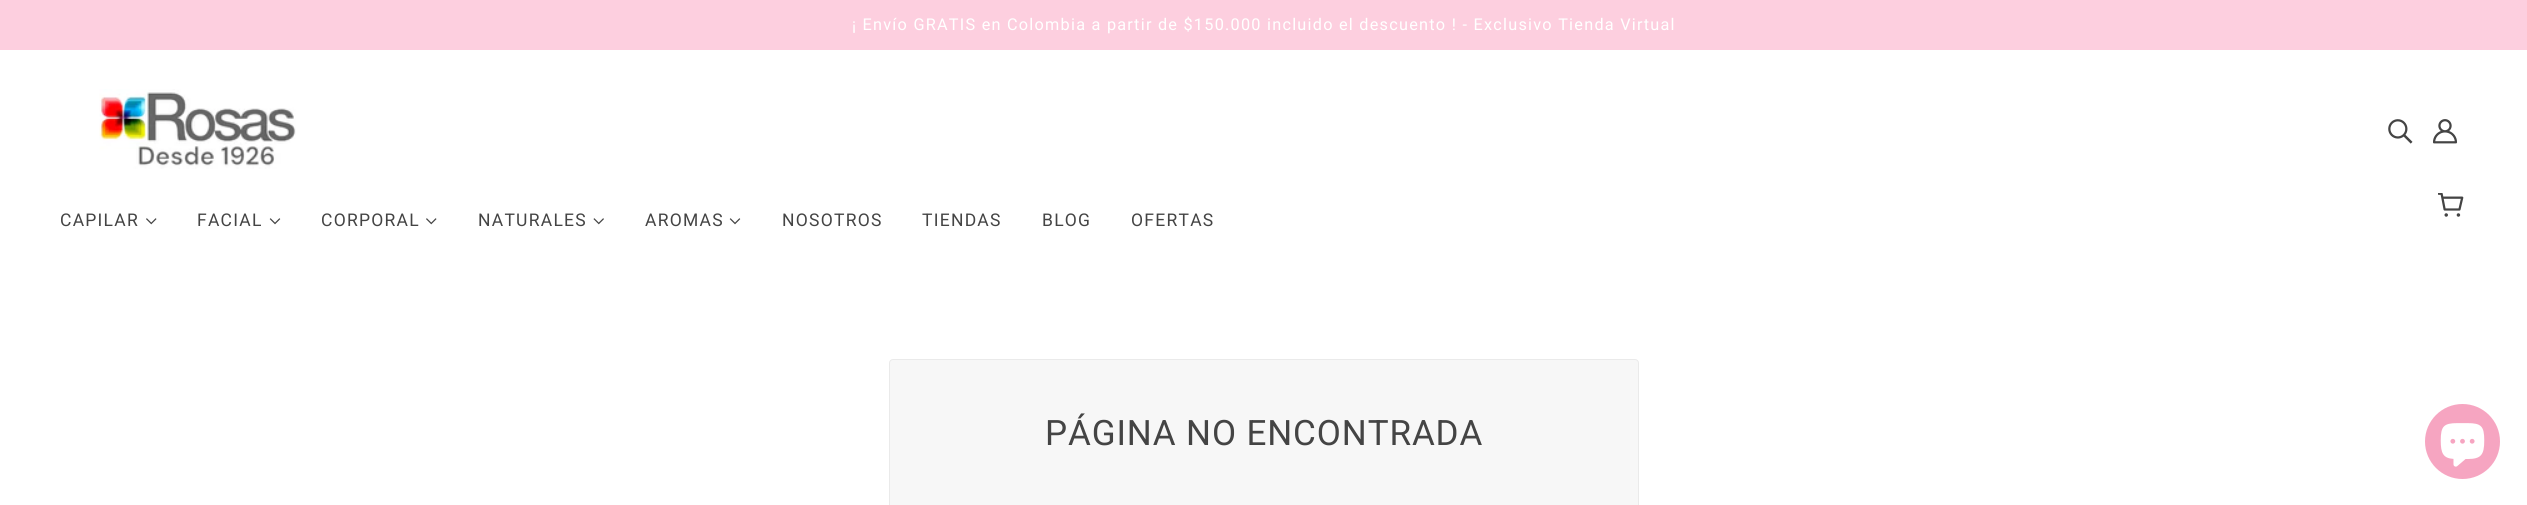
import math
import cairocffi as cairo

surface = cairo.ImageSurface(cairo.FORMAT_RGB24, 2527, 505)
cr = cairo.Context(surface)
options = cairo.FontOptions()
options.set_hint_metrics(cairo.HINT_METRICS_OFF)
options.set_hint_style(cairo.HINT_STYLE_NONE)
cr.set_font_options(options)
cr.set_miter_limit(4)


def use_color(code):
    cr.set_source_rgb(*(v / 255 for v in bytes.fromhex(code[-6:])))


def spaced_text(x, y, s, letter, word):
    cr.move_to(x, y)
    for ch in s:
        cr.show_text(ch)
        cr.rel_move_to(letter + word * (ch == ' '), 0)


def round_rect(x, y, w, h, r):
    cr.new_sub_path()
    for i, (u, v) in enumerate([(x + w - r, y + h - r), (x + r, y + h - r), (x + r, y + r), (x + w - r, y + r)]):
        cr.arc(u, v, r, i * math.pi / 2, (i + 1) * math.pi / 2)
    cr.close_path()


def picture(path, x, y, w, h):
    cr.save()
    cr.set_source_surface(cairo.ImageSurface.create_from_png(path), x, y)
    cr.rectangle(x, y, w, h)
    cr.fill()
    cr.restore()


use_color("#ffffff")
cr.paint()
use_color("#fdcfdf")
cr.rectangle(0, 0, 2527, 50)
cr.fill()
cr.select_font_face("Roboto")
cr.set_font_size(16.25)
use_color("#ffffff")
spaced_text(852, 30, "¡ Envío GRATIS en Colombia a partir de $150.000 incluido el descuento ! - Exclusivo Tienda Virtual", 1.25, 0)
picture("img1.png", 99, 89, 197, 80)
picture("img2.png", 2388, 119, 25, 25)
picture("img3.png", 2433, 119, 25, 25)
picture("img4.png", 2438, 193, 26, 24)
cr.set_font_size(17.5)
use_color("#444444")
spaced_text(60, 226, "CAPILAR", 1.25, 0)
picture("img5.png", 146, 218, 11, 7)
spaced_text(197, 226, "FACIAL", 1.25, 0)
picture("img6.png", 269, 218, 12, 7)
spaced_text(321, 226, "CORPORAL", 1.25, 0)
picture("img5.png", 426, 218, 11, 7)
spaced_text(478, 226, "NATURALES", 1.25, 0)
picture("img7.png", 593, 218, 11, 7)
spaced_text(645, 226, "AROMAS", 1.25, 0)
picture("img6.png", 729, 218, 12, 7)
spaced_text(782, 226, "NOSOTROS", 1.25, 0)
spaced_text(922, 226, "TIENDAS", 1.25, 0)
spaced_text(1042, 226, "BLOG", 1.25, 0)
spaced_text(1131, 226, "OFERTAS", 1.25, 0)
use_color("#f7f7f7")
round_rect(889.5, 359.5, 749, 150, 3.5)
cr.fill_preserve()
use_color("#eaeaea")
cr.set_line_width(1)
cr.stroke()
cr.set_font_size(35)
use_color("#444444")
spaced_text(1045, 445, "PÁGINA NO ENCONTRADA", 0.9, 0)
use_color("#f6a5c1")
cr.new_path()
cr.arc(2462.5, 441.5, 37.5, 0, 2 * math.pi)
cr.fill()
picture("img8.png", 2440, 423, 45, 44)
surface.write_to_png("result.png")
